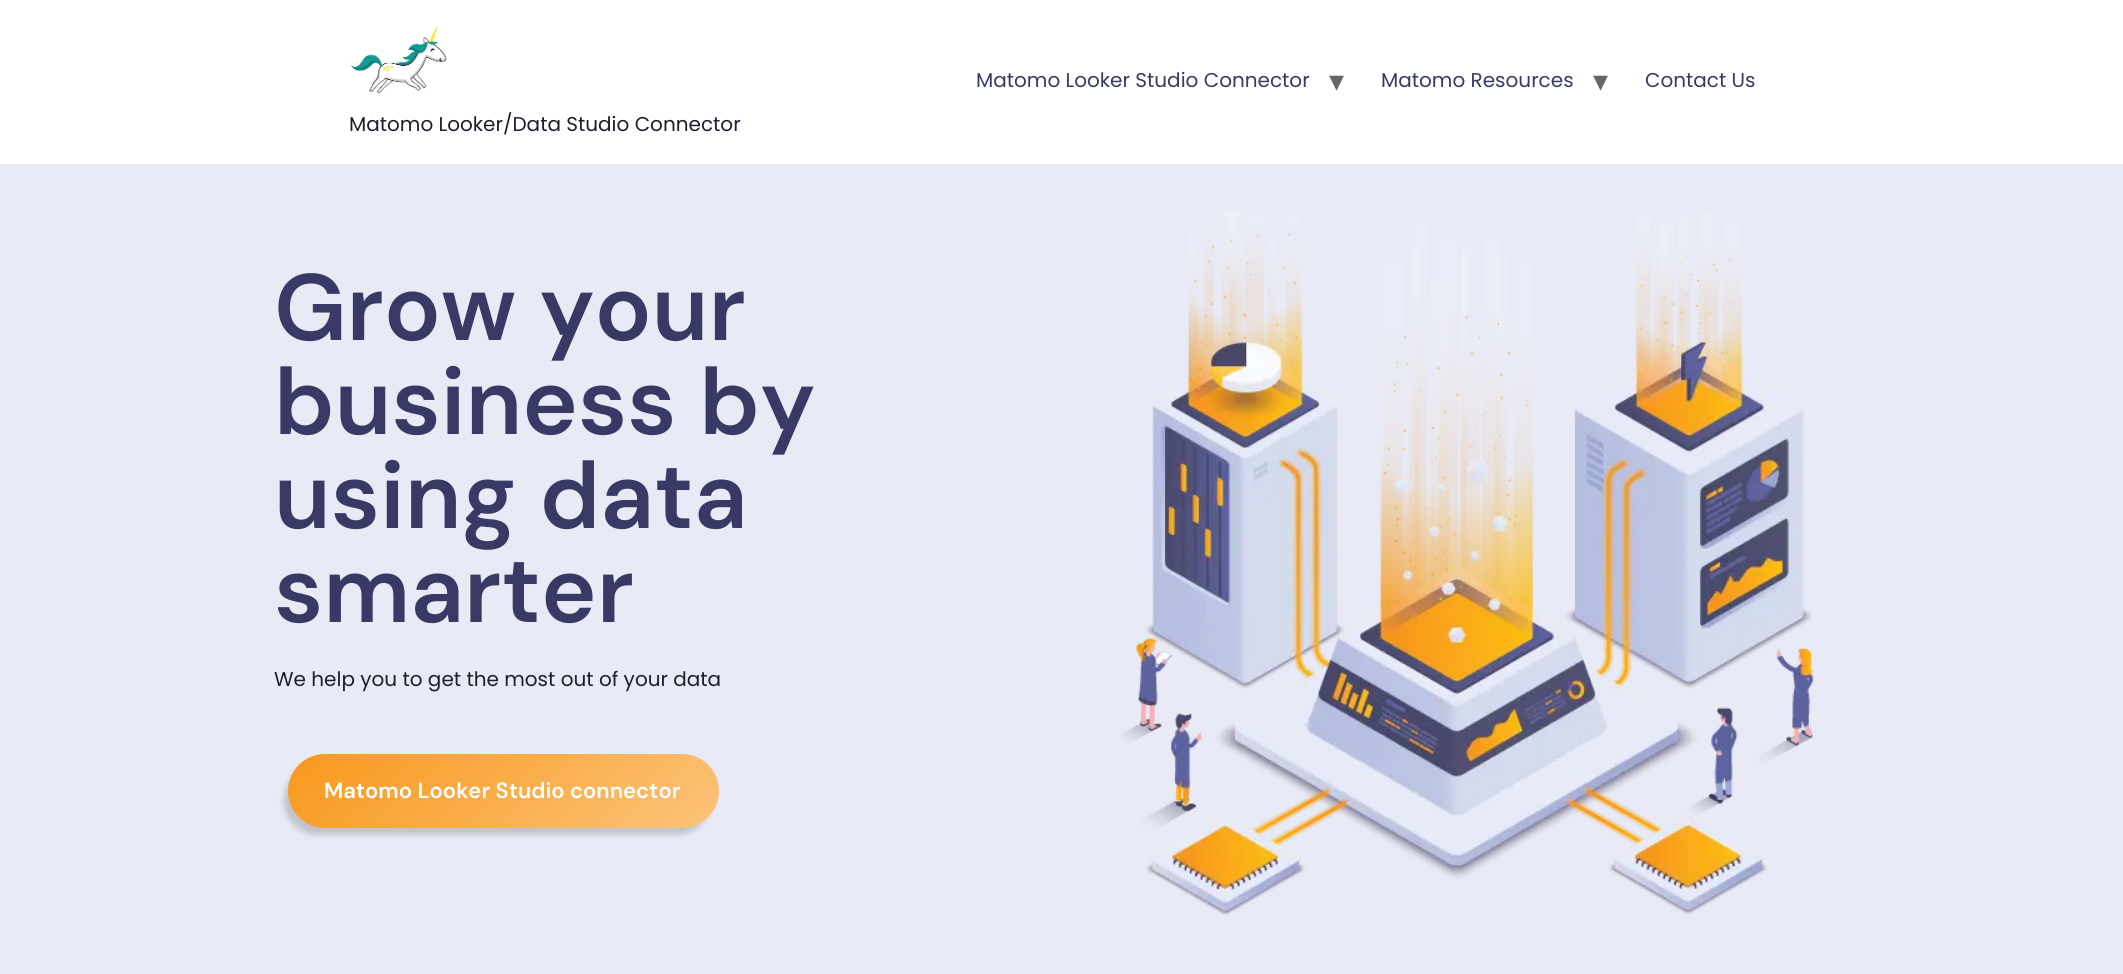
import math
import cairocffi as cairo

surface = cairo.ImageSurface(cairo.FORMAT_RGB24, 2123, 974)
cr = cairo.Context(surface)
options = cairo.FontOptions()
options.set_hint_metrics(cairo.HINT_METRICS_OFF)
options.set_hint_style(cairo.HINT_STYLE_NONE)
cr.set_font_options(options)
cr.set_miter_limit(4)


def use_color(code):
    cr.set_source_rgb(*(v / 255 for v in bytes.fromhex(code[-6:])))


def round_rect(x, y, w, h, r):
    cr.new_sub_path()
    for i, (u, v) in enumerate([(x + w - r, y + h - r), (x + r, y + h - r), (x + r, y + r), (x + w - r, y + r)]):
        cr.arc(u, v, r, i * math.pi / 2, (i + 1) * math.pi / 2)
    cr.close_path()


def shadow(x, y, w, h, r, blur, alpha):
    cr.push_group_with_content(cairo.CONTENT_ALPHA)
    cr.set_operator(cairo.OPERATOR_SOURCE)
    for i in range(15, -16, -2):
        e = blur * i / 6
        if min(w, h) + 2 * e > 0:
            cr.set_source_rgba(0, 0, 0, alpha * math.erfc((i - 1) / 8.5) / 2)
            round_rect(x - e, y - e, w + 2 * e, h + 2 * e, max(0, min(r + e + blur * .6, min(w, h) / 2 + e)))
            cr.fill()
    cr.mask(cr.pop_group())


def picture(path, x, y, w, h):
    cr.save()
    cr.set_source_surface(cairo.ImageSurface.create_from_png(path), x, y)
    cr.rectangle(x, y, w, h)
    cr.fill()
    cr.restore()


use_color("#ffffff")
cr.paint()
cr.select_font_face("Poppins")
cr.set_font_size(20)
use_color("#383a65")
cr.move_to(976, 87)
cr.show_text("Matomo Looker Studio Connector")
cr.select_font_face("DejaVu Sans")
cr.set_font_size(30)
use_color("#666666")
cr.move_to(1329, 91)
cr.show_text("▾")
cr.select_font_face("Poppins")
cr.set_font_size(20)
use_color("#383a65")
cr.move_to(1381, 87)
cr.show_text("Matomo Resources")
cr.select_font_face("DejaVu Sans")
cr.set_font_size(30)
use_color("#666666")
cr.move_to(1593, 91)
cr.show_text("▾")
cr.select_font_face("Poppins")
cr.set_font_size(20)
use_color("#383a65")
cr.move_to(1645, 87)
cr.show_text("Contact Us")
picture("img1.png", 350, 26, 97, 68)
use_color("#1e1e30")
cr.move_to(349, 131)
cr.show_text("Matomo Looker/Data Studio Connector")
use_color("#e8eaf6")
cr.rectangle(0, 164, 2123, 810)
cr.fill()
cr.select_font_face("DM Sans SemiBold")
cr.set_font_size(94)
use_color("#383a65")
cr.move_to(274, 340)
cr.show_text("Grow your")
cr.move_to(274, 434)
cr.show_text("business by")
cr.move_to(274, 528)
cr.show_text("using data")
cr.move_to(274, 622)
cr.show_text("smarter")
cr.select_font_face("Poppins")
cr.set_font_size(20)
use_color("#1e1e30")
cr.move_to(274, 686)
cr.show_text("We help you to get the most out of your data")
use_color("#000000")
shadow(284, 766, 426, 69, 34.5, 3, 0.17)
gradient = cairo.LinearGradient(396, 663, 610, 918)
gradient.add_color_stop_rgba(0, 0.973, 0.596, 0.11, 1)
gradient.add_color_stop_rgba(1, 0.988, 0.765, 0.475, 1)
cr.set_source(gradient)
round_rect(288, 754, 431, 74, 37)
cr.fill()
cr.select_font_face("DM Sans SemiBold")
cr.set_font_size(22)
use_color("#ffffff")
cr.move_to(324, 798)
cr.show_text("Matomo Looker Studio connector")
picture("img2.png", 1119, 210, 695, 705)
surface.write_to_png("result.png")
